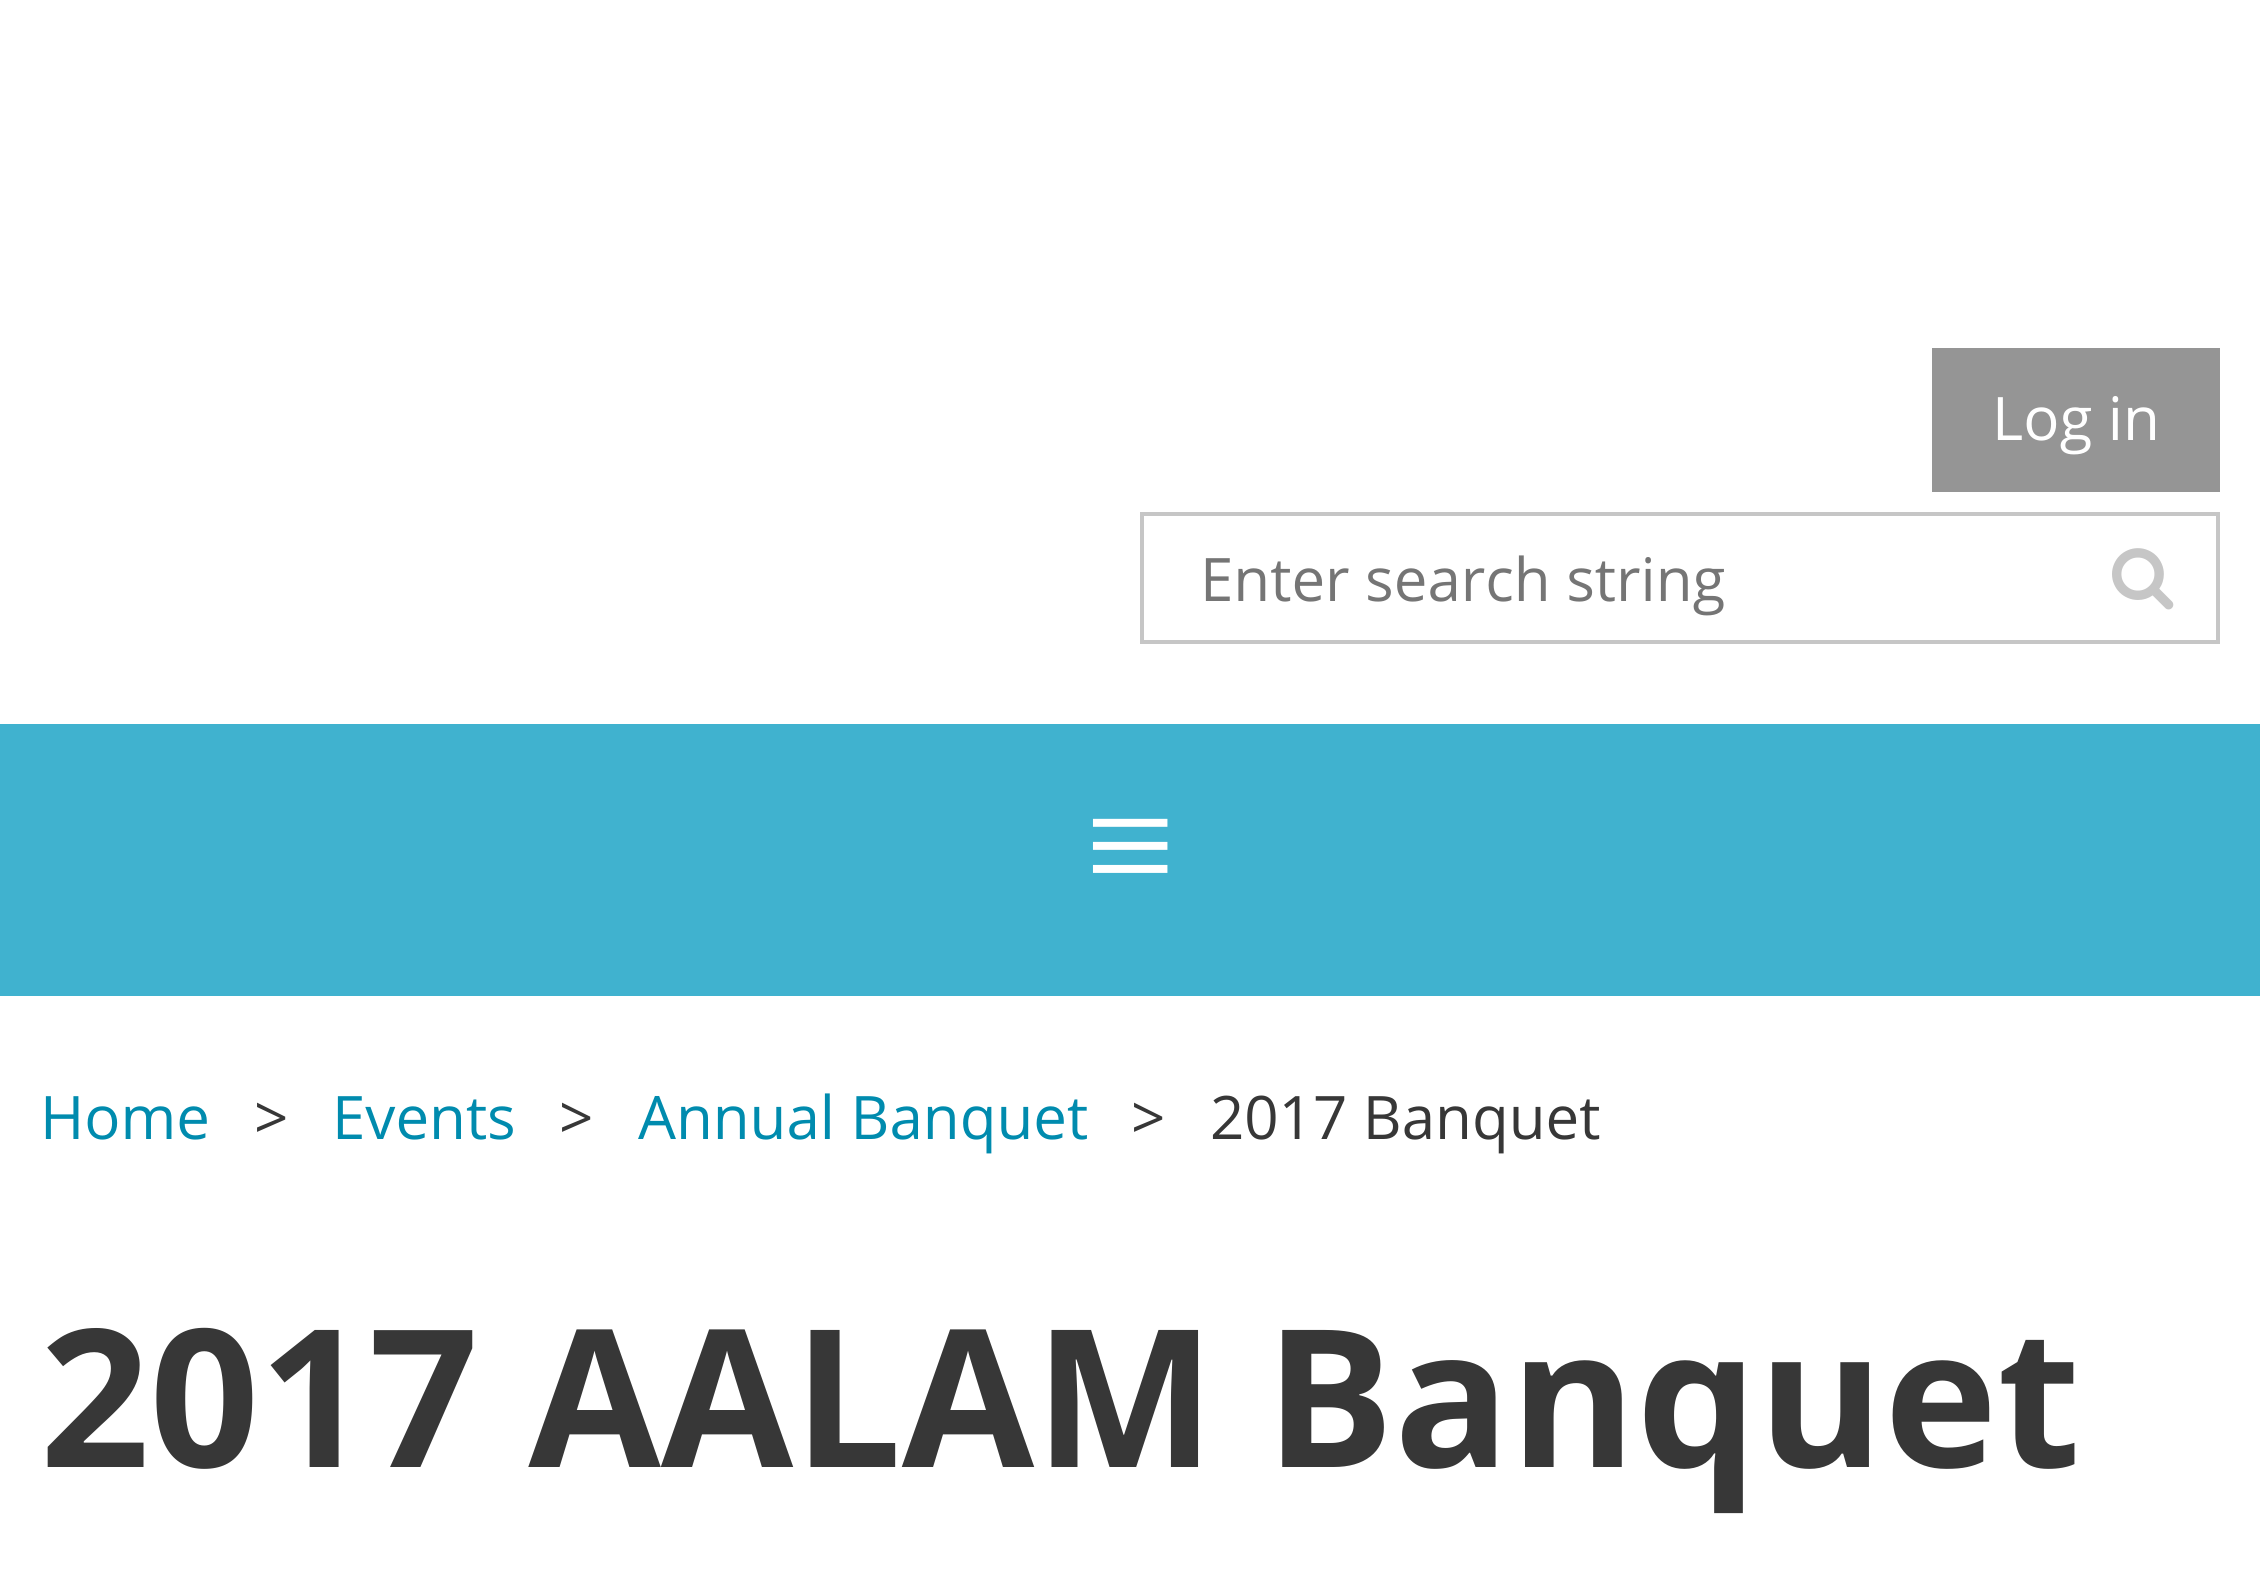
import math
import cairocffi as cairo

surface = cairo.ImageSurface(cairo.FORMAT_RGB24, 2260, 1575)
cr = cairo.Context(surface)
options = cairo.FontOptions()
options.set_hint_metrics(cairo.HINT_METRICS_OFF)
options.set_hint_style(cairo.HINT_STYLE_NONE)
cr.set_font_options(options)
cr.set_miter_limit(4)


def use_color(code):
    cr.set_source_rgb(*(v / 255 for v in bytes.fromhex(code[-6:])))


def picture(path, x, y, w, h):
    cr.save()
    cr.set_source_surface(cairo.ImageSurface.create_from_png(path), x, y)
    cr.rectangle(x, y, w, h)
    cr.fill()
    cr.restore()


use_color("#ffffff")
cr.paint()
use_color("#959595")
cr.rectangle(1932, 348, 288, 144)
cr.fill()
cr.select_font_face("Open Sans")
cr.set_font_size(60)
use_color("#ffffff")
cr.move_to(1992, 440)
cr.show_text("Log in")
cr.rectangle(1142, 514, 1076, 128)
use_color("#c6c6c6")
cr.set_line_width(4)
cr.stroke()
use_color("#757575")
cr.move_to(1200, 601)
cr.show_text("Enter search string")
picture("img1.png", 2112, 548, 62, 62)
use_color("#40b2cf")
cr.rectangle(0, 724, 2260, 272)
cr.fill()
cr.select_font_face("Liberation Serif")
cr.set_font_size(160)
use_color("#ffffff")
cr.move_to(1085, 899)
cr.show_text("≡")
cr.select_font_face("Open Sans")
cr.set_font_size(60)
use_color("#008bae")
cr.move_to(40, 1139)
cr.show_text("Home")
use_color("#373737")
cr.move_to(254, 1139)
cr.show_text(">")
use_color("#008bae")
cr.move_to(332, 1139)
cr.show_text("Events")
use_color("#373737")
cr.move_to(559, 1139)
cr.show_text(">")
use_color("#008bae")
cr.move_to(638, 1139)
cr.show_text("Annual Banquet")
use_color("#373737")
cr.move_to(1131, 1139)
cr.show_text(">")
cr.move_to(1210, 1139)
cr.show_text("2017 Banquet")
cr.select_font_face("Open Sans", cairo.FONT_SLANT_NORMAL, cairo.FONT_WEIGHT_BOLD)
cr.set_font_size(192)
cr.move_to(40, 1467)
cr.show_text("2017 AALAM Banquet")
surface.write_to_png("result.png")
